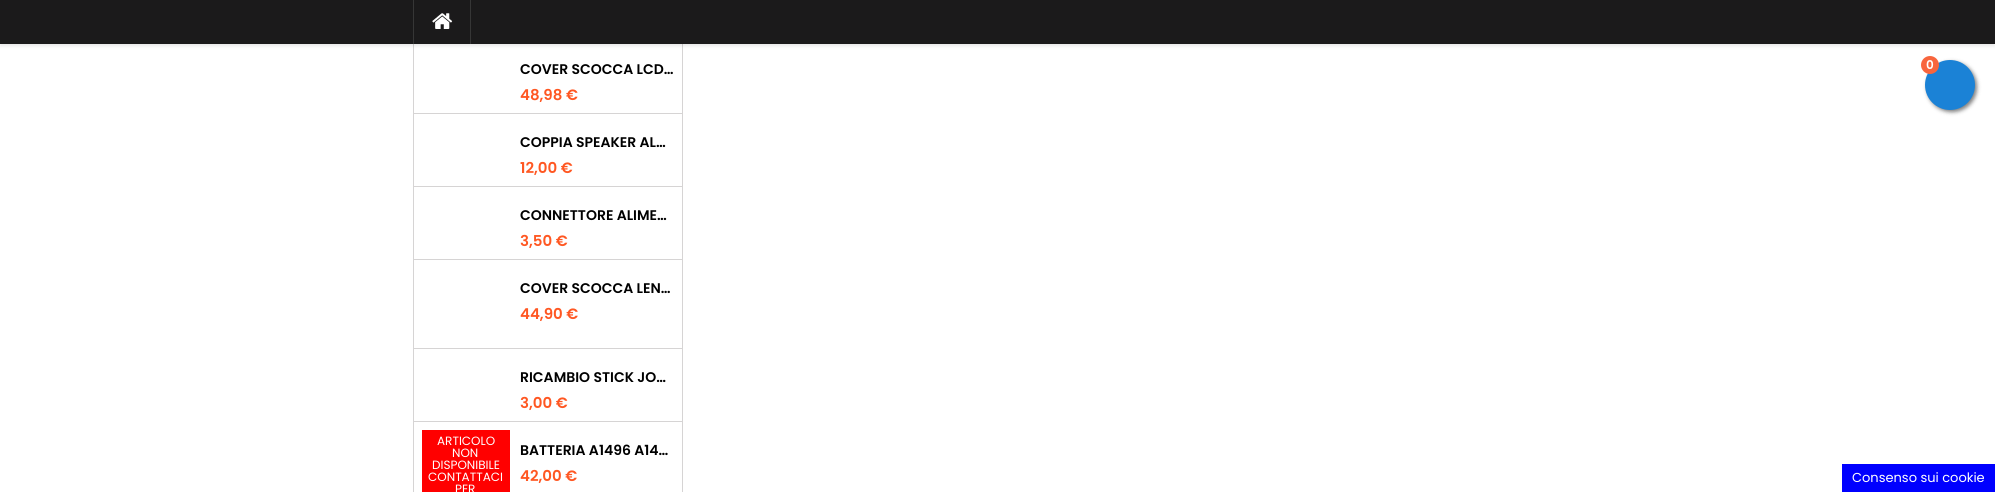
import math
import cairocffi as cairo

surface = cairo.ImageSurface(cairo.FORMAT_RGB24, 1995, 492)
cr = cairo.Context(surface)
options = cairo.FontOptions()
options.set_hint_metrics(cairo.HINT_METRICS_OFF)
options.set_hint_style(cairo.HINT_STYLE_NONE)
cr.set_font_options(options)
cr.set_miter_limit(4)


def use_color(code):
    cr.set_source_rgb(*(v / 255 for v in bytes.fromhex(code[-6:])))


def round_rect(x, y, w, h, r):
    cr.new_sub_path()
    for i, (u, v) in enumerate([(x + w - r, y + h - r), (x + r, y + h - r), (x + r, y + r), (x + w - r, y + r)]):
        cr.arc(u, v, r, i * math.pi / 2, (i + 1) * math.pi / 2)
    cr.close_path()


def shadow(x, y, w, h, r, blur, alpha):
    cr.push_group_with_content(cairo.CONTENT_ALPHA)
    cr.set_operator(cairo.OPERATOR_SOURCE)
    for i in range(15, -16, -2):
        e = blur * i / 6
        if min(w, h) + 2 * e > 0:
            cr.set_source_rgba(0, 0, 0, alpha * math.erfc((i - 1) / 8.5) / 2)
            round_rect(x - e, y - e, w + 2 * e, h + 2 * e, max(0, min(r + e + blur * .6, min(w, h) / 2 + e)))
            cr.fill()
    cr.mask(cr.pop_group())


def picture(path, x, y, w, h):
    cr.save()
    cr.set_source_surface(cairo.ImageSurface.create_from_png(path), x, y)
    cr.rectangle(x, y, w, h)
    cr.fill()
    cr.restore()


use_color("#ffffff")
cr.paint()
use_color("#d6d4d4")
cr.rectangle(682, 41, 1, 451)
cr.fill()
cr.rectangle(413, 113, 270, 1)
cr.fill()
cr.rectangle(413, 41, 1, 73)
cr.fill()
cr.select_font_face("Poppins SemiBold")
cr.set_font_size(14)
use_color("#000000")
cr.move_to(520, 74)
cr.show_text("COVER SCOCCA LCD…")
cr.set_font_size(15)
use_color("#ff5722")
cr.move_to(520, 100)
cr.show_text("48,98 €")
use_color("#d6d4d4")
cr.rectangle(413, 186, 270, 1)
cr.fill()
cr.rectangle(413, 114, 1, 73)
cr.fill()
cr.set_font_size(14)
use_color("#000000")
cr.move_to(520, 147)
cr.show_text("COPPIA SPEAKER AL…")
cr.set_font_size(15)
use_color("#ff5722")
cr.move_to(520, 173)
cr.show_text("12,00 €")
use_color("#d6d4d4")
cr.rectangle(413, 259, 270, 1)
cr.fill()
cr.rectangle(413, 187, 1, 73)
cr.fill()
cr.set_font_size(14)
use_color("#000000")
cr.move_to(520, 220)
cr.show_text("CONNETTORE ALIME…")
cr.set_font_size(15)
use_color("#ff5722")
cr.move_to(520, 246)
cr.show_text("3,50 €")
use_color("#d6d4d4")
cr.rectangle(413, 348, 270, 1)
cr.fill()
cr.rectangle(413, 260, 1, 89)
cr.fill()
cr.set_font_size(14)
use_color("#000000")
cr.move_to(520, 293)
cr.show_text("COVER SCOCCA LEN…")
cr.set_font_size(15)
use_color("#ff5722")
cr.move_to(520, 319)
cr.show_text("44,90 €")
use_color("#d6d4d4")
cr.rectangle(413, 421, 270, 1)
cr.fill()
cr.rectangle(413, 349, 1, 143)
cr.fill()
cr.set_font_size(14)
use_color("#000000")
cr.move_to(520, 382)
cr.show_text("RICAMBIO STICK JO…")
cr.set_font_size(15)
use_color("#ff5722")
cr.move_to(520, 408)
cr.show_text("3,00 €")
use_color("#ff0000")
cr.rectangle(422, 430, 88, 62)
cr.fill()
cr.select_font_face("Poppins")
cr.set_font_size(12)
use_color("#ffffff")
cr.move_to(437, 445)
cr.show_text("ARTICOLO")
cr.move_to(452, 457)
cr.show_text("NON")
cr.move_to(432, 469)
cr.show_text("DISPONIBILE")
cr.move_to(428, 481)
cr.show_text("CONTATTACI")
cr.move_to(455, 493)
cr.show_text("PER")
cr.select_font_face("Poppins SemiBold")
cr.set_font_size(14)
use_color("#000000")
cr.move_to(520, 455)
cr.show_text("BATTERIA A1496 A14…")
cr.set_font_size(15)
use_color("#ff5722")
cr.move_to(520, 481)
cr.show_text("42,00 €")
use_color("#000000")
shadow(0, 2, 1995, 44, 0, 2, 0.1)
use_color("#1b1a1b")
cr.rectangle(0, 0, 1995, 44)
cr.fill()
use_color("#363636")
cr.rectangle(470, 0, 1, 44)
cr.fill()
cr.rectangle(413, 0, 1, 44)
cr.fill()
picture("img1.png", 432, 13, 21, 16)
use_color("#000000")
shadow(1927, 62, 50, 50, 25, 2, 0.5)
use_color("#1b82d6")
cr.arc(1950, 85, 25, 0, 2 * math.pi)
cr.fill()
use_color("#f8653d")
cr.arc(1930, 65, 9, 0, 2 * math.pi)
cr.fill()
cr.set_font_size(12)
use_color("#ffffff")
cr.move_to(1926, 69)
cr.show_text("0")
use_color("#0000ff")
cr.rectangle(1842, 464, 153, 28)
cr.fill()
cr.select_font_face("Poppins")
cr.set_font_size(13)
use_color("#ffffff")
cr.move_to(1852, 482)
cr.show_text("Consenso sui cookie")
surface.write_to_png("result.png")
